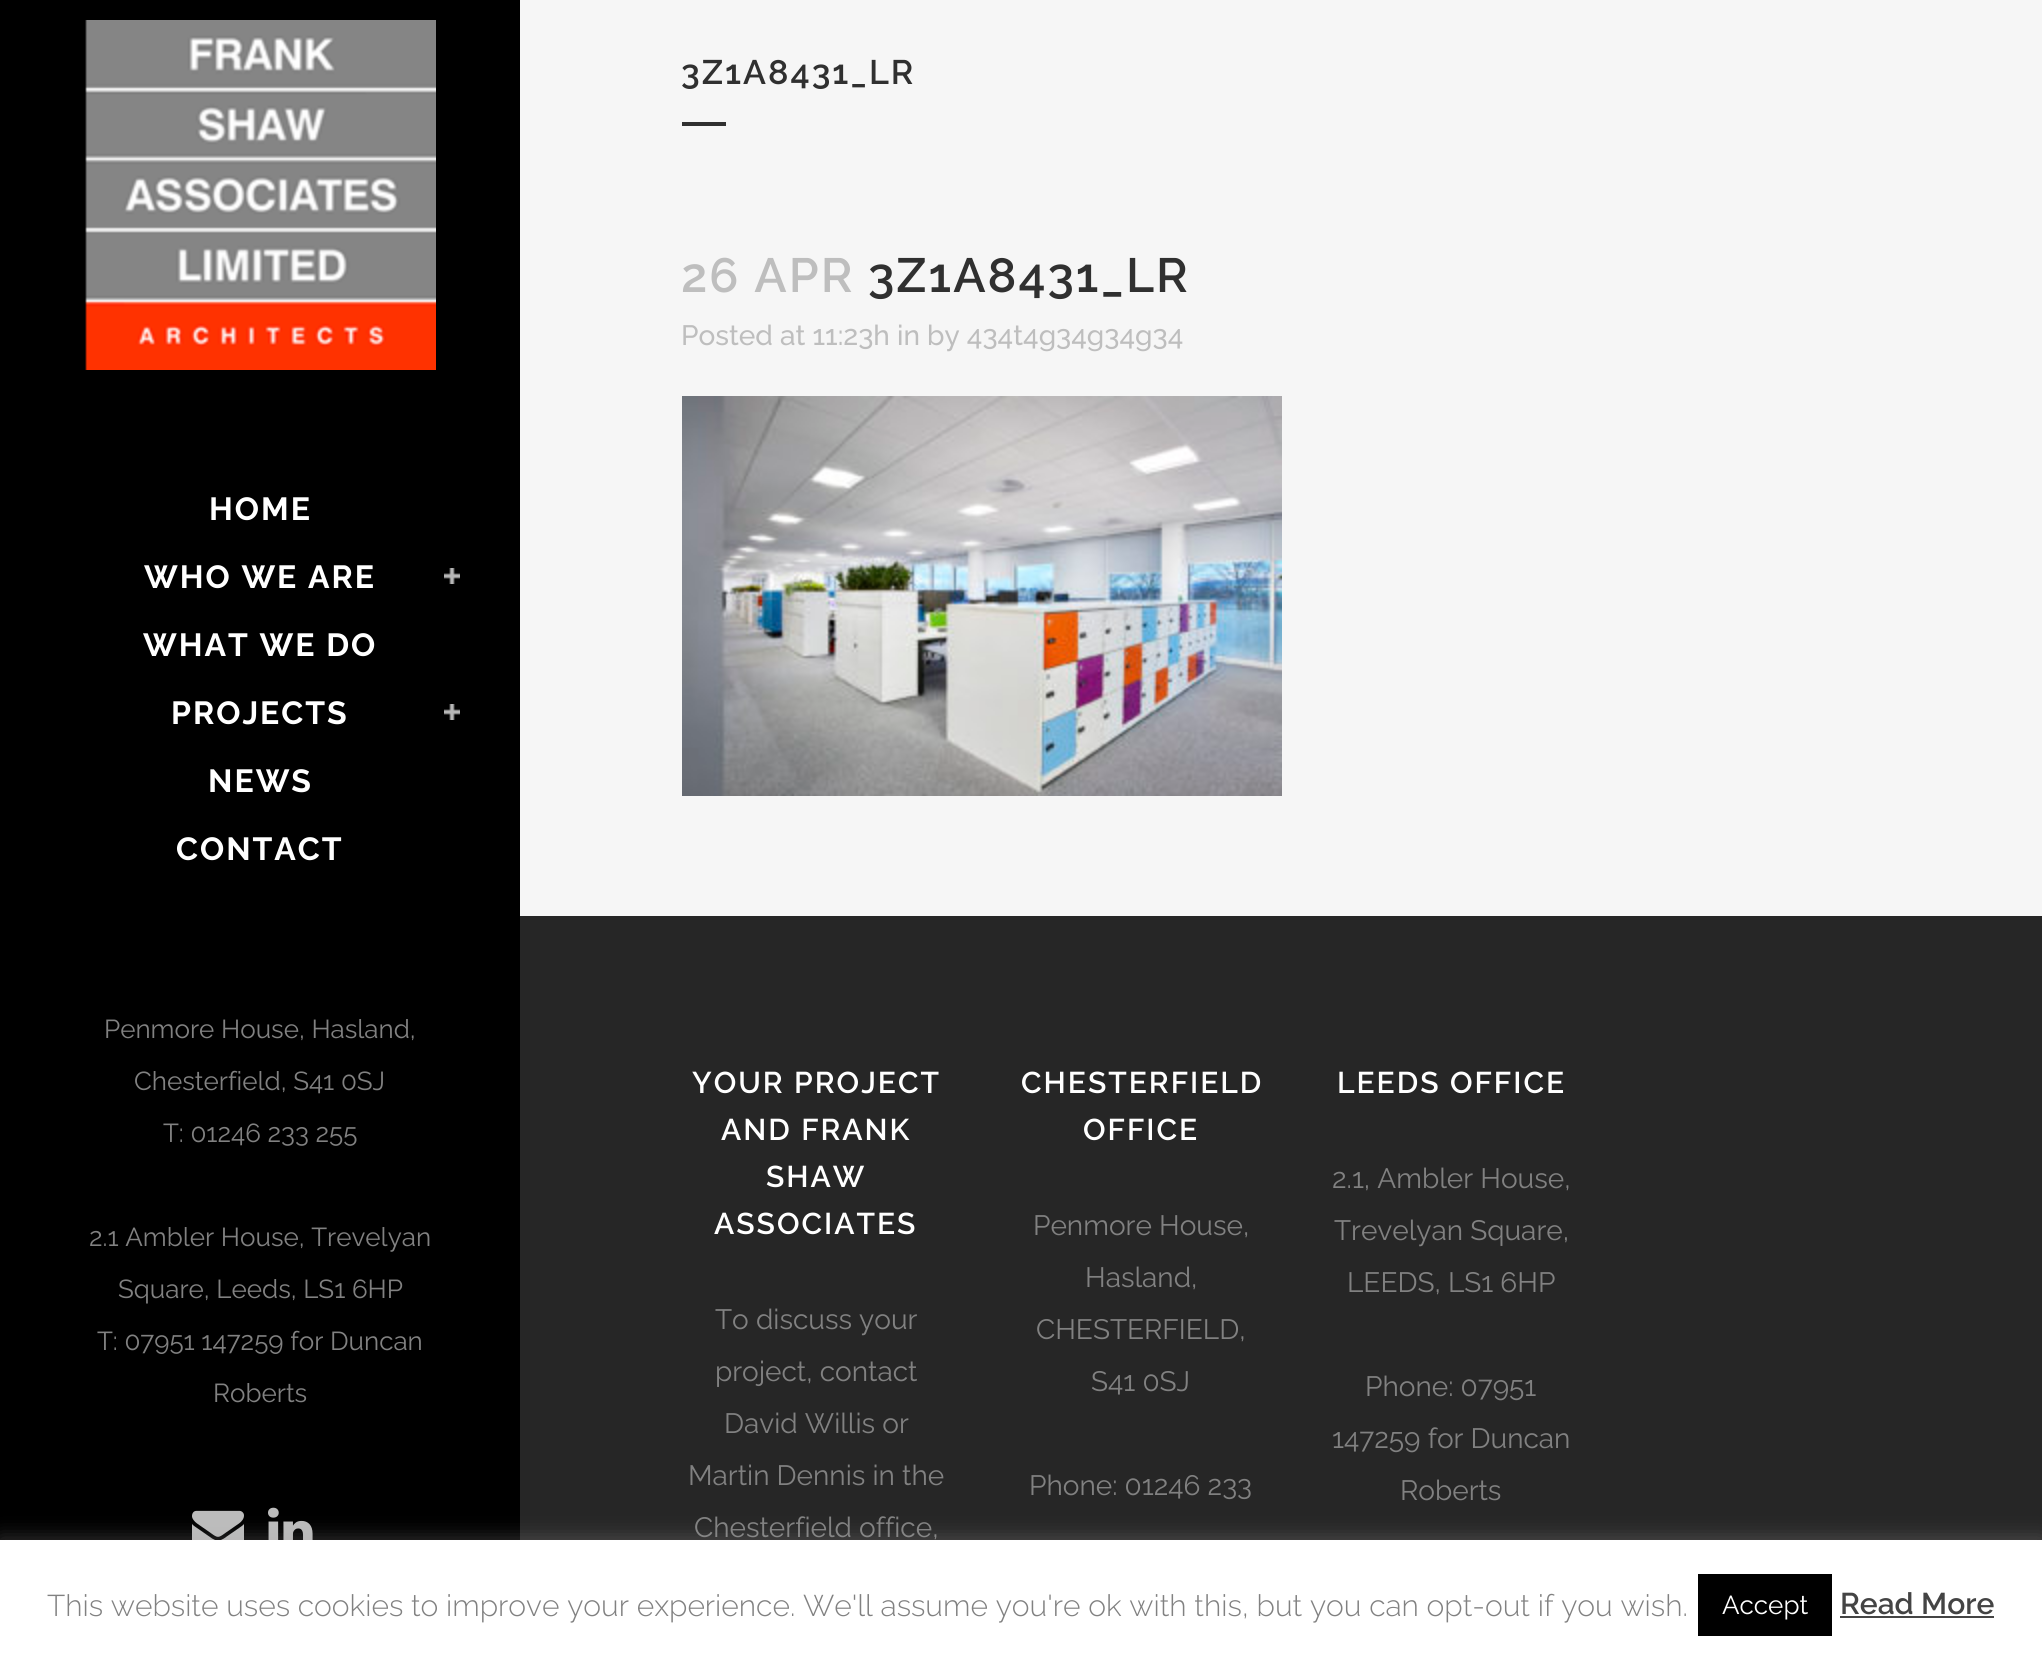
import math
import cairocffi as cairo

surface = cairo.ImageSurface(cairo.FORMAT_RGB24, 2042, 1660)
cr = cairo.Context(surface)
options = cairo.FontOptions()
options.set_hint_metrics(cairo.HINT_METRICS_OFF)
options.set_hint_style(cairo.HINT_STYLE_NONE)
cr.set_font_options(options)
cr.set_miter_limit(4)


def use_color(code):
    cr.set_source_rgb(*(v / 255 for v in bytes.fromhex(code[-6:])))


def spaced_text(x, y, s, letter, word):
    cr.move_to(x, y)
    for ch in s:
        cr.show_text(ch)
        cr.rel_move_to(letter + word * (ch == ' '), 0)


def round_rect(x, y, w, h, r):
    cr.new_sub_path()
    for i, (u, v) in enumerate([(x + w - r, y + h - r), (x + r, y + h - r), (x + r, y + r), (x + w - r, y + r)]):
        cr.arc(u, v, r, i * math.pi / 2, (i + 1) * math.pi / 2)
    cr.close_path()


def shadow(x, y, w, h, r, blur, alpha):
    cr.push_group_with_content(cairo.CONTENT_ALPHA)
    cr.set_operator(cairo.OPERATOR_SOURCE)
    for i in range(15, -16, -2):
        e = blur * i / 6
        if min(w, h) + 2 * e > 0:
            cr.set_source_rgba(0, 0, 0, alpha * math.erfc((i - 1) / 8.5) / 2)
            round_rect(x - e, y - e, w + 2 * e, h + 2 * e, max(0, min(r + e + blur * .6, min(w, h) / 2 + e)))
            cr.fill()
    cr.mask(cr.pop_group())


def picture(path, x, y, w, h):
    cr.save()
    cr.set_source_surface(cairo.ImageSurface.create_from_png(path), x, y)
    cr.rectangle(x, y, w, h)
    cr.fill()
    cr.restore()


use_color("#f6f6f6")
cr.paint()
cr.select_font_face("Raleway SemiBold")
cr.set_font_size(34)
use_color("#303030")
spaced_text(681, 84, "3Z1A8431_LR", 2, 0)
cr.rectangle(682, 122, 44, 4)
cr.fill()
cr.set_font_size(48)
use_color("#bebebe")
spaced_text(681, 292, "26 APR", 2, 0)
use_color("#303030")
spaced_text(868, 292, "3Z1A8431_LR", 2, 0)
cr.select_font_face("Raleway Medium")
cr.set_font_size(28)
use_color("#bebebe")
cr.move_to(681, 345)
cr.show_text("Posted at 11:23h in by 434t4g34g34g34")
picture("img1.png", 682, 396, 600, 400)
use_color("#000000")
cr.rectangle(0, 0, 520, 1540)
cr.fill()
picture("img2.png", 85, 20, 351, 350)
cr.select_font_face("Raleway", cairo.FONT_SLANT_NORMAL, cairo.FONT_WEIGHT_BOLD)
cr.set_font_size(32)
use_color("#ffffff")
spaced_text(209, 520, "HOME", 2, 0)
spaced_text(144, 588, "WHO WE ARE", 2, 0)
picture("img3.png", 444, 568, 16, 16)
spaced_text(143, 656, "WHAT WE DO", 2, 0)
spaced_text(171, 724, "PROJECTS", 2, 0)
picture("img3.png", 444, 704, 16, 16)
spaced_text(208, 792, "NEWS", 2, 0)
spaced_text(176, 860, "CONTACT", 2, 0)
cr.select_font_face("Raleway")
cr.set_font_size(26)
use_color("#818181")
cr.move_to(104, 1038)
cr.show_text("Penmore House, Hasland,")
cr.move_to(134, 1090)
cr.show_text("Chesterfield, S41 0SJ")
cr.move_to(163, 1142)
cr.show_text("T: 01246 233 255")
cr.move_to(89, 1246)
cr.show_text("2.1 Ambler House, Trevelyan")
cr.move_to(118, 1298)
cr.show_text("Square, Leeds, LS1 6HP")
cr.move_to(97, 1350)
cr.show_text("T: 07951 147259 for Duncan")
cr.move_to(213, 1402)
cr.show_text("Roberts")
picture("img4.png", 192, 1510, 52, 30)
picture("img5.png", 268, 1507, 45, 33)
use_color("#262626")
cr.rectangle(520, 916, 1522, 624)
cr.fill()
cr.select_font_face("Raleway SemiBold")
cr.set_font_size(30)
use_color("#ffffff")
spaced_text(692, 1093, "YOUR PROJECT", 2, 0)
spaced_text(721, 1140, "AND FRANK", 2, 0)
spaced_text(766, 1187, "SHAW", 2, 0)
spaced_text(714, 1234, "ASSOCIATES", 2, 0)
cr.select_font_face("Raleway")
cr.set_font_size(28)
use_color("#818181")
cr.move_to(715, 1329)
cr.show_text("To discuss your")
cr.move_to(715, 1381)
cr.show_text("project, contact")
cr.move_to(724, 1433)
cr.show_text("David Willis or")
cr.move_to(688, 1485)
cr.show_text("Martin Dennis in the")
cr.move_to(694, 1537)
cr.show_text("Chesterfield office,")
cr.select_font_face("Raleway SemiBold")
cr.set_font_size(30)
use_color("#ffffff")
spaced_text(1021, 1093, "CHESTERFIELD", 2, 0)
spaced_text(1083, 1140, "OFFICE", 2, 0)
cr.select_font_face("Raleway")
cr.set_font_size(28)
use_color("#818181")
cr.move_to(1033, 1235)
cr.show_text("Penmore House,")
cr.move_to(1085, 1287)
cr.show_text("Hasland,")
cr.move_to(1036, 1339)
cr.show_text("CHESTERFIELD,")
cr.move_to(1091, 1391)
cr.show_text("S41 0SJ")
cr.move_to(1029, 1495)
cr.show_text("Phone: 01246 233")
cr.select_font_face("Raleway SemiBold")
cr.set_font_size(30)
use_color("#ffffff")
spaced_text(1337, 1093, "LEEDS OFFICE", 2, 0)
cr.select_font_face("Raleway")
cr.set_font_size(28)
use_color("#818181")
cr.move_to(1332, 1188)
cr.show_text("2.1, Ambler House,")
cr.move_to(1334, 1240)
cr.show_text("Trevelyan Square,")
cr.move_to(1347, 1292)
cr.show_text("LEEDS, LS1 6HP")
cr.move_to(1365, 1396)
cr.show_text("Phone: 07951")
cr.move_to(1332, 1448)
cr.show_text("147259 for Duncan")
cr.move_to(1400, 1500)
cr.show_text("Roberts")
use_color("#acabab")
shadow(0, 1538, 2042, 120, 0, 10, 0.3)
use_color("#ffffff")
cr.rectangle(0, 1540, 2042, 120)
cr.fill()
cr.select_font_face("Raleway Light")
cr.set_font_size(30)
use_color("#818181")
cr.move_to(47, 1616)
cr.show_text("This website uses cookies to improve your experience. We'll assume you're ok with this, but you can opt-out if you wish.")
use_color("#000000")
cr.rectangle(1698, 1574, 134, 62)
cr.fill()
cr.select_font_face("Raleway")
cr.set_font_size(26)
use_color("#ffffff")
cr.move_to(1722, 1614)
cr.show_text("Accept")
cr.select_font_face("Raleway SemiBold")
cr.set_font_size(30)
use_color("#444444")
cr.move_to(1840, 1614)
cr.show_text("Read More")
cr.rectangle(1840, 1616, 154, 2)
cr.fill()
surface.write_to_png("result.png")
